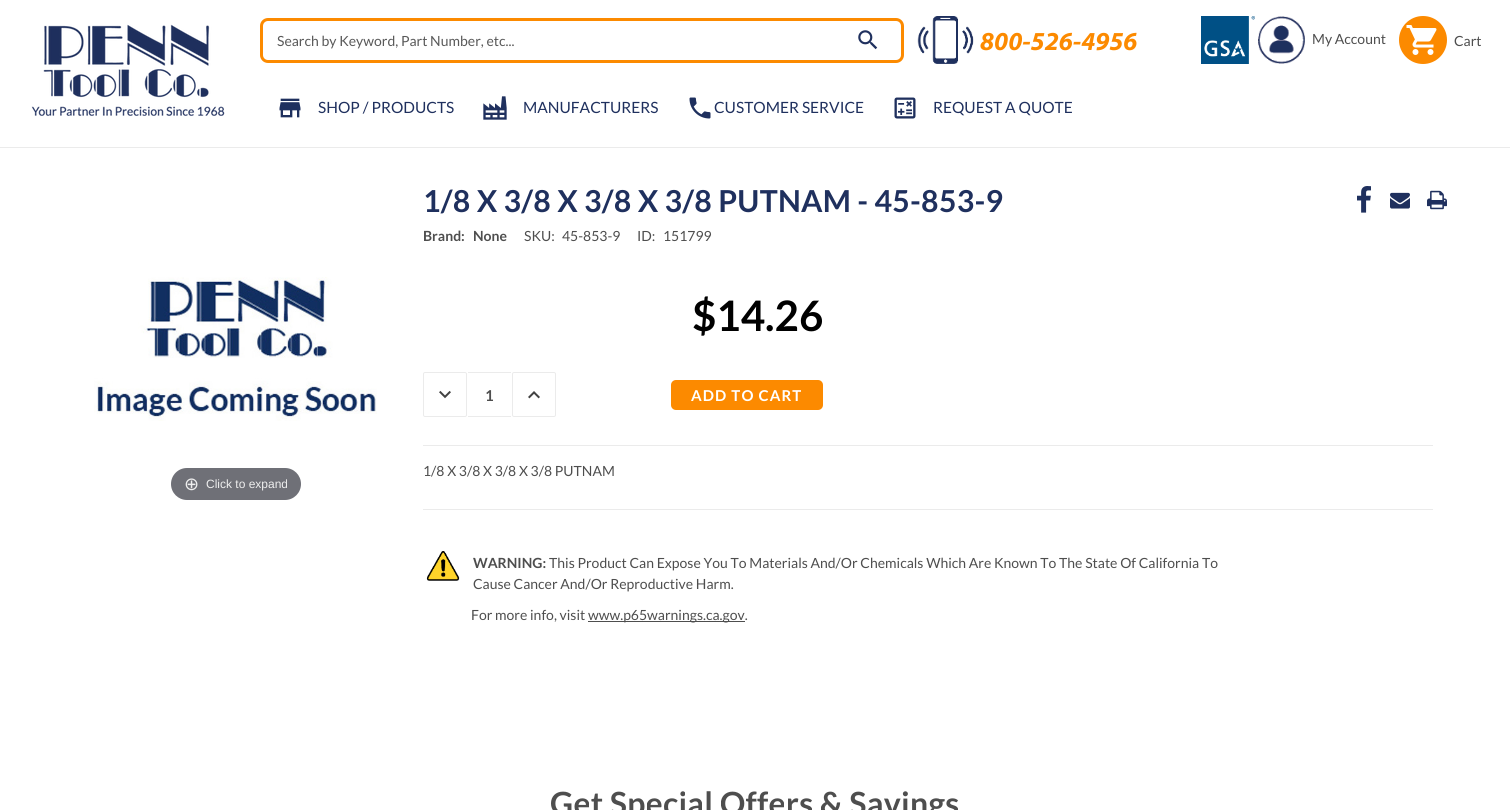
import math
import cairocffi as cairo

surface = cairo.ImageSurface(cairo.FORMAT_RGB24, 1510, 810)
cr = cairo.Context(surface)
options = cairo.FontOptions()
options.set_hint_metrics(cairo.HINT_METRICS_OFF)
options.set_hint_style(cairo.HINT_STYLE_NONE)
cr.set_font_options(options)
cr.set_miter_limit(4)


def use_color(code):
    cr.set_source_rgb(*(v / 255 for v in bytes.fromhex(code[-6:])))


def spaced_text(x, y, s, letter, word):
    cr.move_to(x, y)
    for ch in s:
        cr.show_text(ch)
        cr.rel_move_to(letter + word * (ch == ' '), 0)


def round_rect(x, y, w, h, r):
    cr.new_sub_path()
    for i, (u, v) in enumerate([(x + w - r, y + h - r), (x + r, y + h - r), (x + r, y + r), (x + w - r, y + r)]):
        cr.arc(u, v, r, i * math.pi / 2, (i + 1) * math.pi / 2)
    cr.close_path()


def picture(path, x, y, w, h):
    cr.save()
    cr.set_source_surface(cairo.ImageSurface.create_from_png(path), x, y)
    cr.rectangle(x, y, w, h)
    cr.fill()
    cr.restore()


use_color("#ffffff")
cr.paint()
use_color("#ebebeb")
cr.rectangle(0, 147, 1510, 1)
cr.fill()
picture("img1.png", 31, 24, 194, 92)
round_rect(261.5, 19.5, 641, 42, 6.5)
use_color("#fc8a00")
cr.set_line_width(3)
cr.stroke()
cr.select_font_face("Lato")
cr.set_font_size(14)
use_color("#595959")
cr.move_to(277, 46)
cr.show_text("Search by Keyword, Part Number, etc...")
picture("img2.png", 858, 30, 20, 20)
picture("img3.png", 917, 16, 57, 48)
cr.select_font_face("Myriad", cairo.FONT_SLANT_ITALIC, cairo.FONT_WEIGHT_BOLD)
cr.set_font_size(26)
use_color("#fc8a00")
cr.move_to(980, 50)
cr.show_text("800-526-4956")
picture("img4.png", 1201, 16, 54, 48)
picture("img5.png", 1258, 16, 47, 48)
cr.select_font_face("Lato")
cr.set_font_size(14)
use_color("#4e4e4e")
cr.move_to(1312, 44)
cr.show_text("My Account")
use_color("#fc8a00")
cr.new_path()
cr.arc(1423, 40, 24, 0, 2 * math.pi)
cr.fill()
picture("img6.png", 1406, 25, 31, 30)
use_color("#4e4e4e")
cr.move_to(1454, 46)
cr.show_text("Cart")
picture("img7.png", 279, 98, 22, 20)
cr.set_font_size(15.5)
use_color("#1f305e")
cr.move_to(318, 113)
cr.show_text("SHOP / PRODUCTS")
picture("img8.png", 483, 96, 24, 24)
cr.move_to(523, 113)
cr.show_text("MANUFACTURERS")
picture("img9.png", 689, 97, 22, 22)
cr.move_to(714, 113)
cr.show_text("CUSTOMER SERVICE")
picture("img10.png", 894, 97, 22, 22)
cr.move_to(933, 113)
cr.show_text("REQUEST A QUOTE")
picture("img11.png", 94, 277, 283, 144)
use_color("#6f7077")
round_rect(171, 468, 130, 32, 16)
cr.fill()
cr.select_font_face("DejaVu Sans")
cr.set_font_size(18)
use_color("#eeeeee")
cr.move_to(184, 490)
cr.show_text("⊕")
cr.select_font_face("Liberation Sans")
cr.set_font_size(12)
cr.move_to(206, 488)
cr.show_text("Click to expand")
cr.select_font_face("Lato", cairo.FONT_SLANT_NORMAL, cairo.FONT_WEIGHT_BOLD)
cr.set_font_size(30.25)
use_color("#1f305e")
spaced_text(423, 212, "1/8 X 3/8 X 3/8 X 3/8 PUTNAM - 45-853-9", 0.25, 0)
cr.set_font_size(14)
use_color("#4e4e4e")
cr.move_to(423, 241)
cr.show_text("Brand:   None")
cr.select_font_face("Lato")
cr.move_to(524, 241)
cr.show_text("SKU:")
cr.move_to(562, 241)
cr.show_text("45-853-9")
cr.move_to(637, 241)
cr.show_text("ID:")
cr.move_to(663, 241)
cr.show_text("151799")
cr.select_font_face("Lato", cairo.FONT_SLANT_NORMAL, cairo.FONT_WEIGHT_BOLD)
cr.set_font_size(42)
use_color("#000000")
cr.move_to(692, 331)
cr.show_text("$14.26")
picture("img12.png", 1357, 186, 14, 27)
picture("img13.png", 1390, 192, 20, 17)
picture("img14.png", 1427, 190, 20, 20)
round_rect(423.5, 372.5, 43, 44, 1.5)
use_color("#ebebeb")
cr.set_line_width(1)
cr.stroke()
picture("img15.png", 439, 390, 12, 9)
cr.rectangle(468, 372, 43, 1)
cr.fill()
cr.rectangle(468, 416, 43, 1)
cr.fill()
cr.set_font_size(15)
use_color("#4e4e4e")
cr.move_to(485, 401)
cr.show_text("1")
round_rect(512.5, 372.5, 43, 44, 1.5)
use_color("#ebebeb")
cr.stroke()
picture("img16.png", 528, 391, 12, 8)
use_color("#fc8a00")
round_rect(671, 380, 152, 30, 5)
cr.fill()
use_color("#ffffff")
spaced_text(691, 401, "ADD TO CART", 1.1, 0)
use_color("#ebebeb")
cr.rectangle(423, 445, 1010, 1)
cr.fill()
cr.select_font_face("Lato")
cr.set_font_size(14)
use_color("#4e4e4e")
cr.move_to(423, 476)
cr.show_text("1/8 X 3/8 X 3/8 X 3/8 PUTNAM")
use_color("#ebebeb")
cr.rectangle(423, 509, 1010, 1)
cr.fill()
picture("img17.png", 426, 551, 34, 30)
cr.select_font_face("Lato", cairo.FONT_SLANT_NORMAL, cairo.FONT_WEIGHT_BOLD)
use_color("#4e4e4e")
cr.move_to(473, 568)
cr.show_text("WARNING:")
cr.select_font_face("Lato")
cr.move_to(549, 568)
cr.show_text("This Product Can Expose You To Materials And/Or Chemicals Which Are Known To The State Of California To")
cr.move_to(473, 589)
cr.show_text("Cause Cancer And/Or Reproductive Harm.")
cr.move_to(471, 620)
cr.show_text("For more info, visit")
cr.rectangle(588, 621, 157, 1)
cr.fill()
cr.move_to(588, 620)
cr.show_text("www.p65warnings.ca.gov.")
cr.select_font_face("Lato", cairo.FONT_SLANT_NORMAL, cairo.FONT_WEIGHT_BOLD)
cr.set_font_size(32)
spaced_text(550, 815, "Get Special Offers & Savings", 0.25, 0)
surface.write_to_png("result.png")
